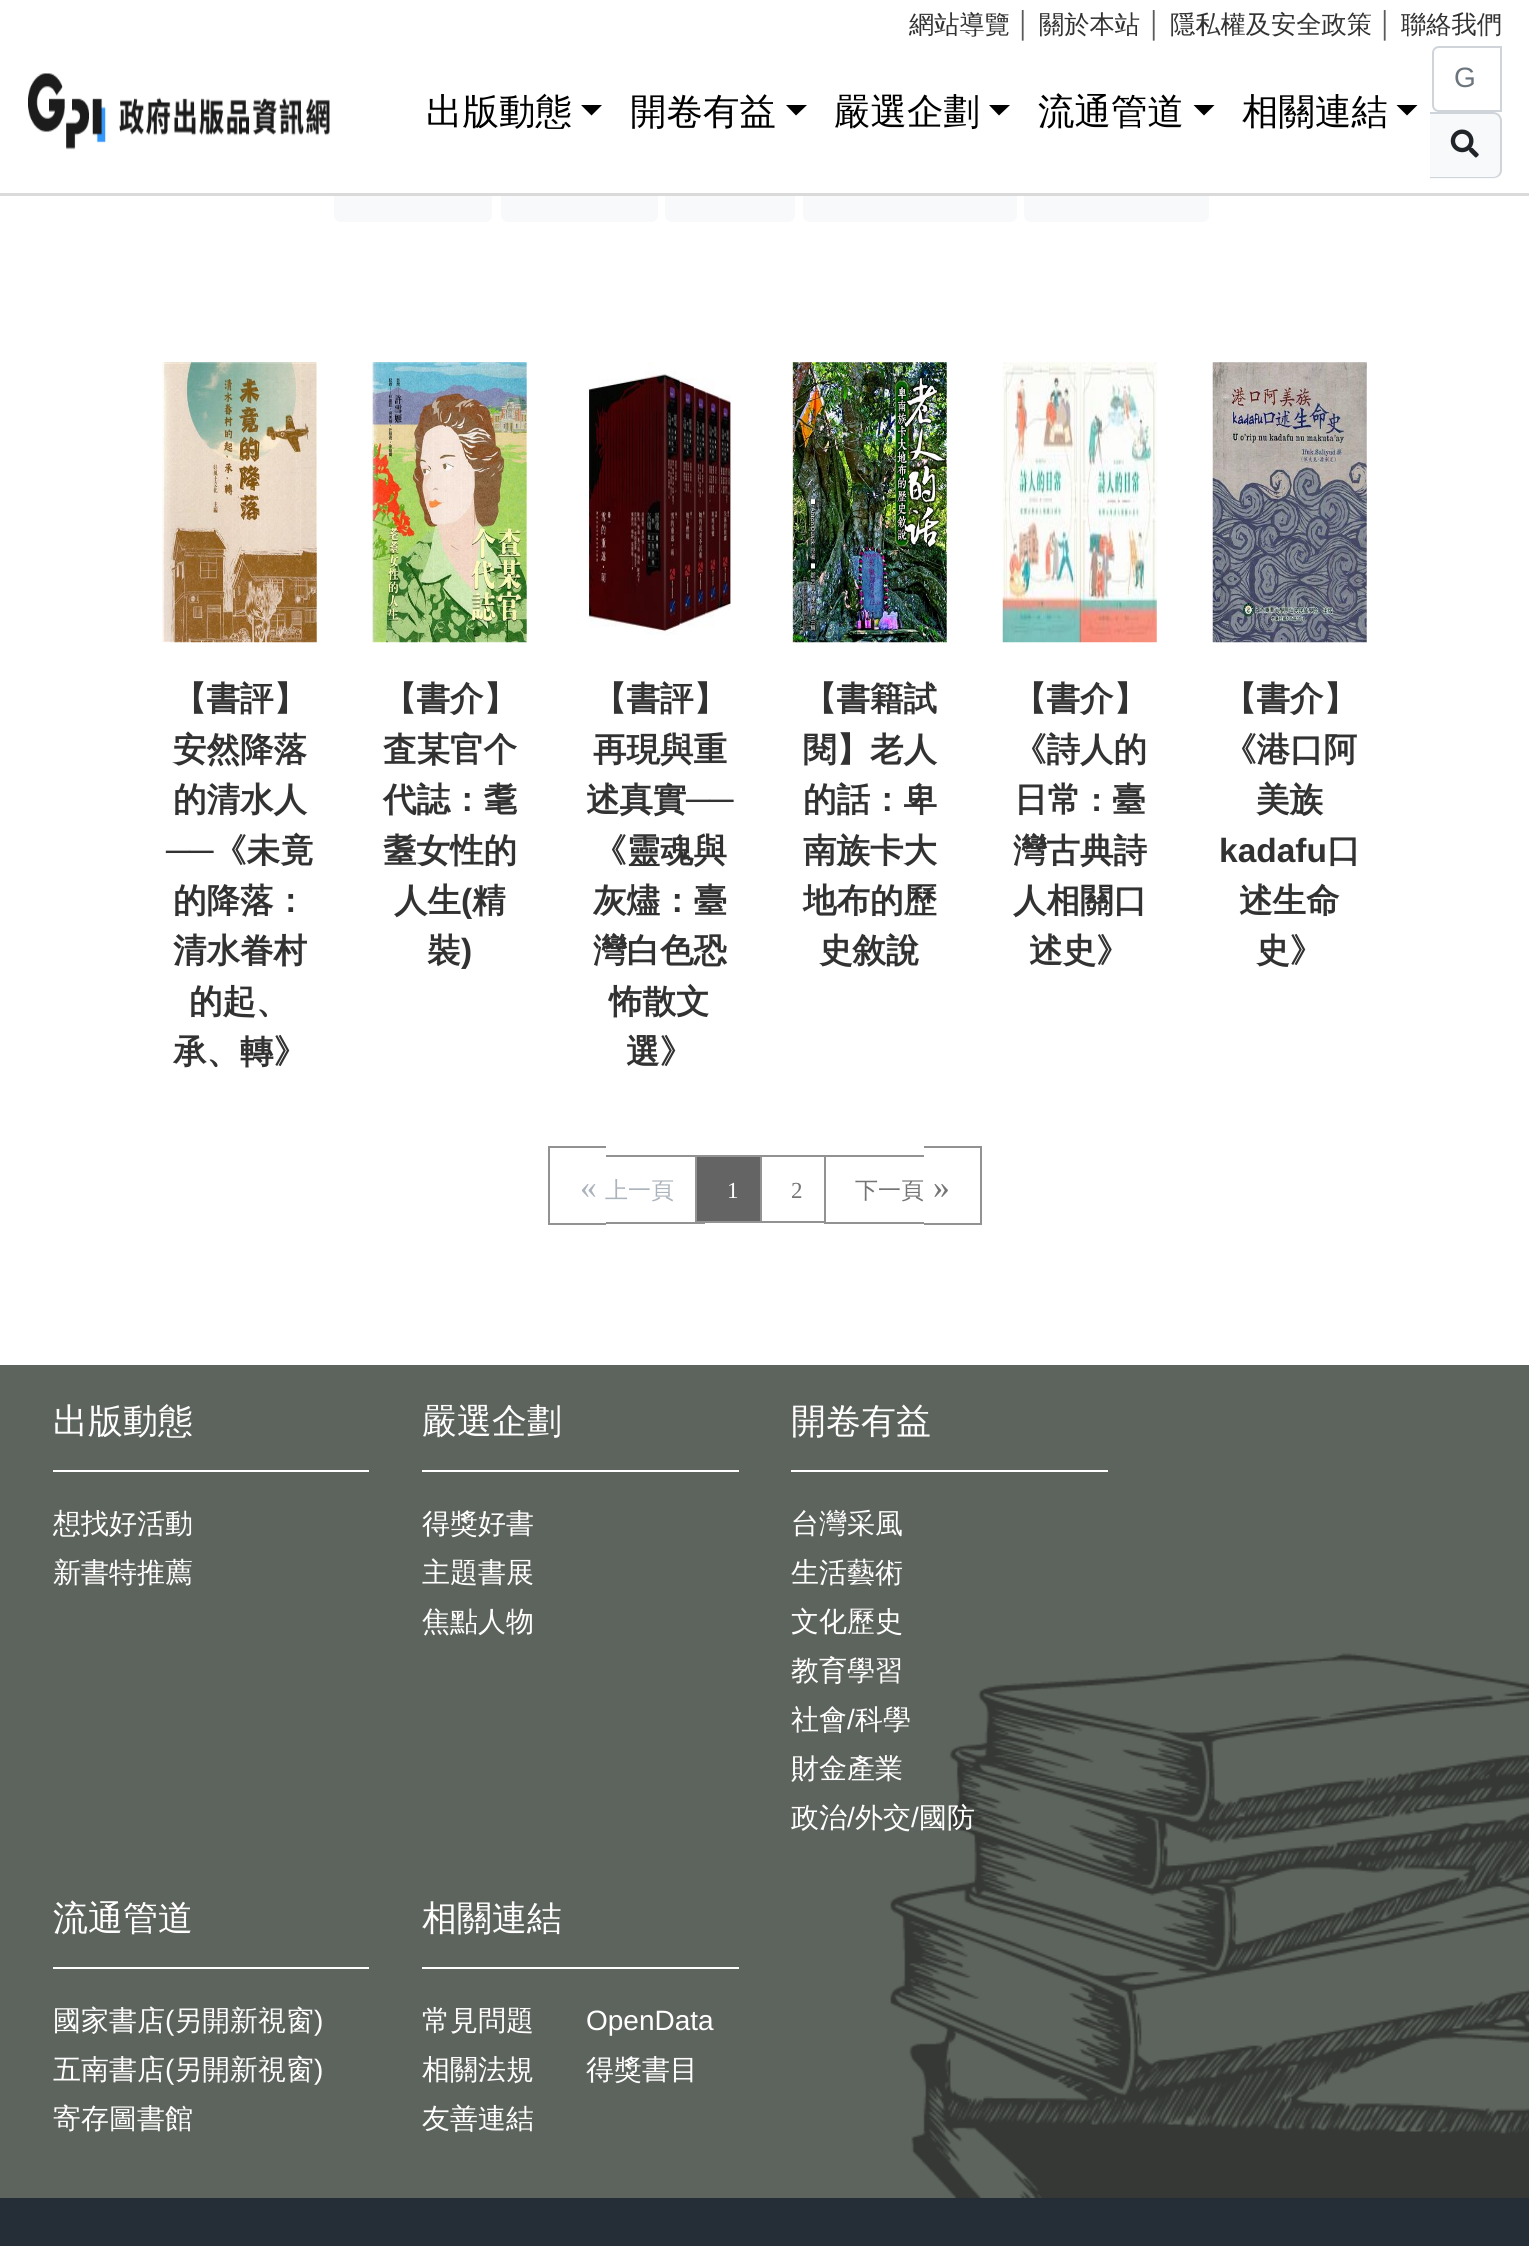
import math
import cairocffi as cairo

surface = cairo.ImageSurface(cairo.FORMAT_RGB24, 1529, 2246)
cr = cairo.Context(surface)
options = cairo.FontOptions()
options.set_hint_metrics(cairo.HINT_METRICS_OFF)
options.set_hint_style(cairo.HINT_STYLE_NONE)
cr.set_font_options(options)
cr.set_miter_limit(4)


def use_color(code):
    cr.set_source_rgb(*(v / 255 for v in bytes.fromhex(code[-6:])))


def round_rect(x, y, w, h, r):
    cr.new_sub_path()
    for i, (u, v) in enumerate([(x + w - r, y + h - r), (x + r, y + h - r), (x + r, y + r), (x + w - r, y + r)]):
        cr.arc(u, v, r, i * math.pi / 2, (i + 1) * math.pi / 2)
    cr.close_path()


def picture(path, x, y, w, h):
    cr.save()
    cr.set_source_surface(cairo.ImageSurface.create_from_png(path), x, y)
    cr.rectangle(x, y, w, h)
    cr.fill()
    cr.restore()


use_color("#ffffff")
cr.paint()
use_color("#f8f9fa")
round_rect(334, 156, 158, 66, 7)
cr.fill()
round_rect(501, 156, 157, 66, 7)
cr.fill()
round_rect(665, 156, 130, 66, 7)
cr.fill()
round_rect(803, 156, 214, 66, 7)
cr.fill()
round_rect(1024, 156, 185, 66, 7)
cr.fill()
use_color("#ffffff")
cr.rectangle(334, 156, 875, 37)
cr.fill()
use_color("#dadada")
cr.rectangle(0, 193, 1529, 3)
cr.fill()
cr.select_font_face("WenQuanYi Zen Hei Medium")
cr.set_font_size(25.25)
use_color("#323232")
cr.move_to(909, 33)
cr.show_text("網站導覽")
cr.select_font_face("Liberation Sans")
use_color("#5a5a5a")
cr.move_to(1016, 33)
cr.show_text("│")
cr.select_font_face("WenQuanYi Zen Hei Medium")
use_color("#323232")
cr.move_to(1039, 33)
cr.show_text("關於本站")
cr.select_font_face("Liberation Sans")
use_color("#5a5a5a")
cr.move_to(1147, 33)
cr.show_text("│")
cr.select_font_face("WenQuanYi Zen Hei Medium")
use_color("#323232")
cr.move_to(1170, 33)
cr.show_text("隱私權及安全政策")
cr.select_font_face("Liberation Sans")
use_color("#5a5a5a")
cr.move_to(1378, 33)
cr.show_text("│")
cr.select_font_face("WenQuanYi Zen Hei Medium")
use_color("#323232")
cr.move_to(1401, 33)
cr.show_text("聯絡我們")
picture("img1.png", 28, 73, 302, 77)
cr.new_path()
cr.move_to(1439, 47)
cr.line_to(1501, 47)
cr.line_to(1501, 111)
cr.line_to(1439, 111)
cr.curve_to(1435.5, 111, 1433, 108.5, 1433, 105)
cr.line_to(1433, 53)
cr.curve_to(1433, 49.5, 1435.5, 47, 1439, 47)
cr.close_path()
use_color("#ced4da")
cr.stroke()
cr.select_font_face("Liberation Sans")
cr.set_font_size(28)
use_color("#6c757d")
cr.move_to(1454, 87)
cr.show_text("G")
use_color("#f8f9fa")
cr.new_path()
cr.move_to(1430, 112)
cr.line_to(1493, 112)
cr.curve_to(1498, 112, 1502, 116, 1502, 121)
cr.line_to(1502, 170)
cr.curve_to(1502, 175, 1498, 179, 1493, 179)
cr.line_to(1430, 179)
cr.close_path()
cr.fill()
use_color("#ced4da")
cr.set_fill_rule(cairo.FILL_RULE_EVEN_ODD)
cr.new_path()
cr.move_to(1430, 112)
cr.line_to(1493, 112)
cr.curve_to(1498, 112, 1502, 116, 1502, 121)
cr.line_to(1502, 170)
cr.curve_to(1502, 175, 1498, 178, 1493, 178)
cr.line_to(1430, 178)
cr.close_path()
cr.move_to(1430, 114)
cr.line_to(1493, 114)
cr.curve_to(1497, 114, 1500, 117, 1500, 121)
cr.line_to(1500, 170)
cr.curve_to(1500, 174, 1497, 177, 1493, 177)
cr.line_to(1430, 177)
cr.close_path()
cr.fill()
picture("img2.png", 1450, 129, 29, 29)
cr.select_font_face("WenQuanYi Zen Hei Medium")
cr.set_font_size(36.5)
use_color("#000000")
cr.move_to(426, 124)
cr.show_text("出版動態")
cr.set_fill_rule(cairo.FILL_RULE_WINDING)
cr.new_path()
cr.move_to(581, 105)
cr.line_to(602, 105)
cr.line_to(591.5, 115.5)
cr.close_path()
cr.fill()
cr.move_to(630, 124)
cr.show_text("開卷有益")
cr.new_path()
cr.move_to(786, 105)
cr.line_to(807, 105)
cr.line_to(796, 115.5)
cr.close_path()
cr.fill()
cr.move_to(834, 124)
cr.show_text("嚴選企劃")
cr.new_path()
cr.move_to(989, 105)
cr.line_to(1010, 105)
cr.line_to(999, 115.5)
cr.close_path()
cr.fill()
cr.move_to(1038, 124)
cr.show_text("流通管道")
cr.new_path()
cr.move_to(1193.5, 105)
cr.line_to(1214.5, 105)
cr.line_to(1204, 115.5)
cr.close_path()
cr.fill()
cr.move_to(1242, 124)
cr.show_text("相關連結")
cr.new_path()
cr.move_to(1396.5, 105)
cr.line_to(1417.5, 105)
cr.line_to(1407, 115.5)
cr.close_path()
cr.fill()
picture("img3.png", 162, 362, 155, 281)
cr.select_font_face("WenQuanYi Zen Hei", cairo.FONT_SLANT_NORMAL, cairo.FONT_WEIGHT_BOLD)
cr.set_font_size(33.5)
use_color("#323232")
cr.move_to(173, 710)
cr.show_text("【書評】")
cr.move_to(173, 761)
cr.show_text("安然降落")
cr.move_to(173, 811)
cr.show_text("的清水人")
cr.select_font_face("Liberation Sans", cairo.FONT_SLANT_NORMAL, cairo.FONT_WEIGHT_BOLD)
cr.move_to(166, 862)
cr.show_text("──")
cr.select_font_face("WenQuanYi Zen Hei", cairo.FONT_SLANT_NORMAL, cairo.FONT_WEIGHT_BOLD)
cr.move_to(213, 862)
cr.show_text("《未竟")
cr.move_to(173, 912)
cr.show_text("的降落：")
cr.move_to(173, 962)
cr.show_text("清水眷村")
cr.move_to(189, 1013)
cr.show_text("的起、")
cr.move_to(173, 1063)
cr.show_text("承、轉》")
picture("img4.png", 372, 362, 155, 281)
cr.move_to(383, 710)
cr.show_text("【書介】")
cr.move_to(383, 761)
cr.show_text("査某官个")
cr.move_to(383, 811)
cr.show_text("代誌：耄")
cr.move_to(383, 862)
cr.show_text("耋女性的")
cr.move_to(394, 912)
cr.show_text("人生")
cr.select_font_face("Liberation Sans", cairo.FONT_SLANT_NORMAL, cairo.FONT_WEIGHT_BOLD)
cr.move_to(461, 912)
cr.show_text("(")
cr.select_font_face("WenQuanYi Zen Hei", cairo.FONT_SLANT_NORMAL, cairo.FONT_WEIGHT_BOLD)
cr.move_to(472, 912)
cr.show_text("精")
cr.move_to(427, 962)
cr.show_text("裝")
cr.select_font_face("Liberation Sans", cairo.FONT_SLANT_NORMAL, cairo.FONT_WEIGHT_BOLD)
cr.move_to(461, 962)
cr.show_text(")")
picture("img5.png", 586, 362, 145, 273)
cr.select_font_face("WenQuanYi Zen Hei", cairo.FONT_SLANT_NORMAL, cairo.FONT_WEIGHT_BOLD)
cr.move_to(593, 710)
cr.show_text("【書評】")
cr.move_to(593, 761)
cr.show_text("再現與重")
cr.move_to(586, 811)
cr.show_text("述真實")
cr.select_font_face("Liberation Sans", cairo.FONT_SLANT_NORMAL, cairo.FONT_WEIGHT_BOLD)
cr.move_to(686, 811)
cr.show_text("──")
cr.select_font_face("WenQuanYi Zen Hei", cairo.FONT_SLANT_NORMAL, cairo.FONT_WEIGHT_BOLD)
cr.move_to(593, 862)
cr.show_text("《靈魂與")
cr.move_to(593, 912)
cr.show_text("灰燼：臺")
cr.move_to(593, 962)
cr.show_text("灣白色恐")
cr.move_to(609, 1013)
cr.show_text("怖散文")
cr.move_to(626, 1063)
cr.show_text("選》")
picture("img6.png", 792, 362, 155, 281)
cr.move_to(803, 710)
cr.show_text("【書籍試")
cr.move_to(803, 761)
cr.show_text("閱】老人")
cr.move_to(803, 811)
cr.show_text("的話：卑")
cr.move_to(803, 862)
cr.show_text("南族卡大")
cr.move_to(803, 912)
cr.show_text("地布的歷")
cr.move_to(819, 962)
cr.show_text("史敘說")
picture("img7.png", 1002, 362, 155, 281)
cr.move_to(1013, 710)
cr.show_text("【書介】")
cr.move_to(1013, 761)
cr.show_text("《詩人的")
cr.move_to(1014, 811)
cr.show_text("日常")
cr.select_font_face("Liberation Sans", cairo.FONT_SLANT_NORMAL, cairo.FONT_WEIGHT_BOLD)
cr.move_to(1091, 811)
cr.show_text(":")
cr.select_font_face("WenQuanYi Zen Hei", cairo.FONT_SLANT_NORMAL, cairo.FONT_WEIGHT_BOLD)
cr.move_to(1112, 811)
cr.show_text("臺")
cr.move_to(1013, 862)
cr.show_text("灣古典詩")
cr.move_to(1013, 912)
cr.show_text("人相關口")
cr.move_to(1029, 962)
cr.show_text("述史》")
picture("img8.png", 1212, 362, 155, 281)
cr.move_to(1223, 710)
cr.show_text("【書介】")
cr.move_to(1223, 761)
cr.show_text("《港口阿")
cr.move_to(1256, 811)
cr.show_text("美族")
cr.select_font_face("Liberation Sans", cairo.FONT_SLANT_NORMAL, cairo.FONT_WEIGHT_BOLD)
cr.move_to(1219, 862)
cr.show_text("kadafu")
cr.select_font_face("WenQuanYi Zen Hei", cairo.FONT_SLANT_NORMAL, cairo.FONT_WEIGHT_BOLD)
cr.move_to(1327, 862)
cr.show_text("口")
cr.move_to(1239, 912)
cr.show_text("述生命")
cr.move_to(1256, 962)
cr.show_text("史》")
cr.select_font_face("Liberation Serif")
use_color("#abb3bc")
cr.move_to(580, 1198)
cr.show_text("«")
use_color("#929292")
cr.rectangle(548, 1223, 58, 2)
cr.fill()
cr.rectangle(548, 1146, 58, 2)
cr.fill()
cr.rectangle(548, 1146, 2, 79)
cr.fill()
cr.select_font_face("WenQuanYi Zen Hei Medium")
cr.set_font_size(23)
use_color("#abb3bc")
cr.move_to(605, 1198)
cr.show_text("上一頁")
use_color("#929292")
cr.rectangle(606, 1155, 89, 2)
cr.fill()
cr.rectangle(606, 1222, 99, 2)
cr.fill()
use_color("#646464")
cr.rectangle(697, 1157, 63, 64)
cr.fill()
cr.rectangle(696, 1156, 73, 66)
use_color("#929292")
cr.stroke()
cr.select_font_face("Liberation Serif")
use_color("#ffffff")
cr.move_to(727, 1198)
cr.show_text("1")
cr.rectangle(768, 1157, 2, 64)
cr.fill()
cr.rectangle(761, 1156, 73, 66)
use_color("#929292")
cr.stroke()
use_color("#747474")
cr.move_to(791, 1198)
cr.show_text("2")
cr.select_font_face("WenQuanYi Zen Hei Medium")
cr.move_to(855, 1198)
cr.show_text("下一頁")
use_color("#ffffff")
cr.rectangle(826, 1157, 9, 65)
cr.fill()
use_color("#929292")
cr.rectangle(835, 1155, 89, 2)
cr.fill()
cr.rectangle(824, 1222, 100, 2)
cr.fill()
cr.rectangle(824, 1155, 2, 68)
cr.fill()
cr.rectangle(924, 1146, 58, 2)
cr.fill()
cr.rectangle(980, 1146, 2, 79)
cr.fill()
cr.rectangle(924, 1223, 58, 2)
cr.fill()
cr.select_font_face("Liberation Serif")
cr.set_font_size(33.5)
use_color("#747474")
cr.move_to(933, 1198)
cr.show_text("»")
use_color("#5d635d")
cr.rectangle(0, 1365, 1529, 833)
cr.fill()
cr.select_font_face("WenQuanYi Zen Hei Medium")
cr.set_font_size(35)
use_color("#ffffff")
cr.move_to(53, 1433)
cr.show_text("出版動態")
cr.rectangle(53, 1470, 316, 2)
cr.fill()
cr.set_font_size(28)
cr.move_to(53, 1533)
cr.show_text("想找好活動")
cr.move_to(53, 1582)
cr.show_text("新書特推薦")
cr.set_font_size(35)
cr.move_to(422, 1433)
cr.show_text("嚴選企劃")
cr.rectangle(422, 1470, 317, 2)
cr.fill()
cr.set_font_size(28)
cr.move_to(422, 1533)
cr.show_text("得獎好書")
cr.move_to(422, 1582)
cr.show_text("主題書展")
cr.move_to(422, 1631)
cr.show_text("焦點人物")
cr.set_font_size(35)
cr.move_to(791, 1433)
cr.show_text("開卷有益")
cr.rectangle(791, 1470, 317, 2)
cr.fill()
cr.set_font_size(28)
cr.move_to(791, 1533)
cr.show_text("台灣采風")
cr.move_to(791, 1582)
cr.show_text("生活藝術")
cr.move_to(791, 1631)
cr.show_text("文化歷史")
picture("img9.png", 890, 1653, 639, 545)
cr.move_to(791, 1680)
cr.show_text("教育學習")
cr.move_to(791, 1729)
cr.show_text("社會")
cr.select_font_face("Liberation Sans")
cr.move_to(847, 1729)
cr.show_text("/")
cr.select_font_face("WenQuanYi Zen Hei Medium")
cr.move_to(855, 1729)
cr.show_text("科學")
cr.move_to(791, 1778)
cr.show_text("財金產業")
cr.move_to(791, 1827)
cr.show_text("政治")
cr.select_font_face("Liberation Sans")
cr.move_to(847, 1827)
cr.show_text("/")
cr.select_font_face("WenQuanYi Zen Hei Medium")
cr.move_to(855, 1827)
cr.show_text("外交")
cr.select_font_face("Liberation Sans")
cr.move_to(911, 1827)
cr.show_text("/")
cr.select_font_face("WenQuanYi Zen Hei Medium")
cr.move_to(919, 1827)
cr.show_text("國防")
cr.set_font_size(35)
cr.move_to(53, 1930)
cr.show_text("流通管道")
cr.rectangle(53, 1967, 316, 2)
cr.fill()
cr.set_font_size(28)
cr.move_to(53, 2030)
cr.show_text("國家書店")
cr.select_font_face("Liberation Sans")
cr.move_to(165, 2030)
cr.show_text("(")
cr.select_font_face("WenQuanYi Zen Hei Medium")
cr.move_to(174, 2030)
cr.show_text("另開新視窗")
cr.select_font_face("Liberation Sans")
cr.move_to(314, 2030)
cr.show_text(")")
cr.select_font_face("WenQuanYi Zen Hei Medium")
cr.move_to(53, 2079)
cr.show_text("五南書店")
cr.select_font_face("Liberation Sans")
cr.move_to(165, 2079)
cr.show_text("(")
cr.select_font_face("WenQuanYi Zen Hei Medium")
cr.move_to(174, 2079)
cr.show_text("另開新視窗")
cr.select_font_face("Liberation Sans")
cr.move_to(314, 2079)
cr.show_text(")")
cr.select_font_face("WenQuanYi Zen Hei Medium")
cr.move_to(53, 2128)
cr.show_text("寄存圖書館")
cr.set_font_size(35)
cr.move_to(422, 1930)
cr.show_text("相關連結")
cr.rectangle(422, 1967, 317, 2)
cr.fill()
cr.set_font_size(28)
cr.move_to(422, 2030)
cr.show_text("常見問題")
cr.move_to(422, 2079)
cr.show_text("相關法規")
cr.move_to(422, 2128)
cr.show_text("友善連結")
cr.select_font_face("Liberation Sans")
cr.move_to(586, 2030)
cr.show_text("OpenData")
cr.select_font_face("WenQuanYi Zen Hei Medium")
cr.move_to(586, 2079)
cr.show_text("得獎書目")
use_color("#252e36")
cr.rectangle(0, 2198, 1529, 48)
cr.fill()
surface.write_to_png("result.png")
